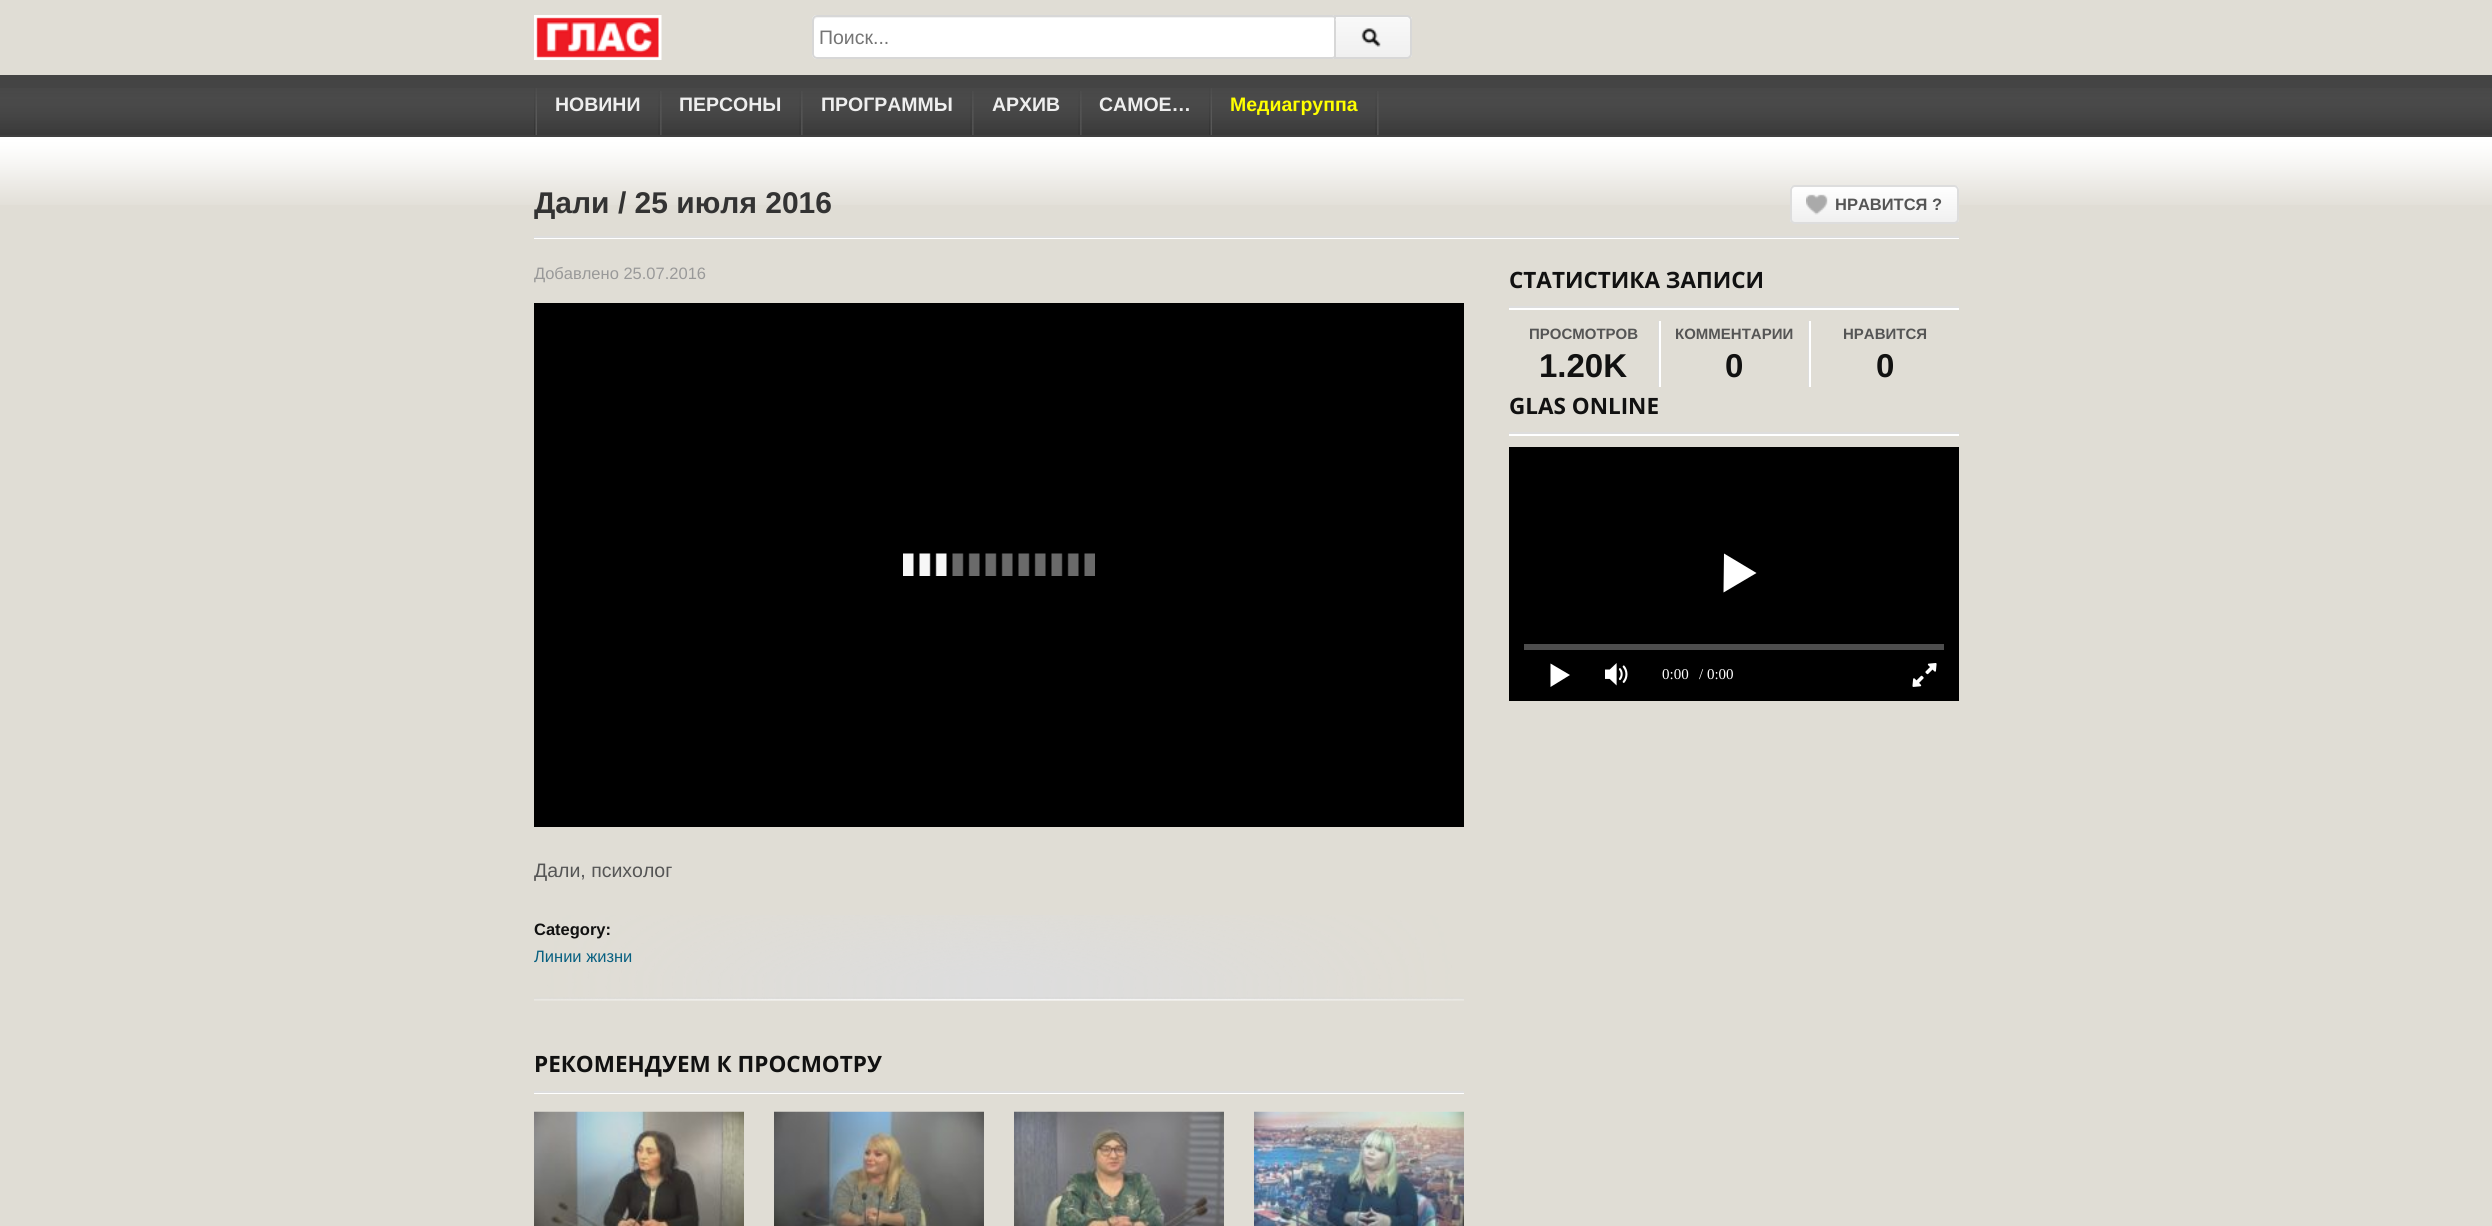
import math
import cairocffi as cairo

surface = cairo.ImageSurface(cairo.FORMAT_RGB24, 2492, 1226)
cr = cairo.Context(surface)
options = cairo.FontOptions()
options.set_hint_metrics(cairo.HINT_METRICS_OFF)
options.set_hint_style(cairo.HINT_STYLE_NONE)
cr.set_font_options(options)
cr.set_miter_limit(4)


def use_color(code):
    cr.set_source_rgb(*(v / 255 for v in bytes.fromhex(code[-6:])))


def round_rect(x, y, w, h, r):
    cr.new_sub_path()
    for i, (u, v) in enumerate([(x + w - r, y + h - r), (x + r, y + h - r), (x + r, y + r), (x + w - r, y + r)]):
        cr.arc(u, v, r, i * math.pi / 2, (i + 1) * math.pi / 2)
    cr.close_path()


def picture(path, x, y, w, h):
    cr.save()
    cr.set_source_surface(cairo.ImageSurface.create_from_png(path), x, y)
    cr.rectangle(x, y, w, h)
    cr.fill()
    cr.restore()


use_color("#e0ddd5")
cr.paint()
picture("img1.png", 534, 15, 128, 45)
use_color("#ffffff")
round_rect(812, 15, 525, 44, 5)
cr.fill()
use_color("#f2f2f2")
cr.new_path()
cr.move_to(818, 18)
cr.line_to(1334, 18)
cr.curve_to(1334, 17, 1333, 17, 1332, 17)
cr.line_to(816, 17)
cr.curve_to(814, 17, 813, 18, 813, 20)
cr.line_to(813, 54)
cr.curve_to(813, 55, 813, 56, 814, 56)
cr.line_to(814, 27)
cr.curve_to(814, 23, 813, 18, 818, 18)
cr.close_path()
cr.fill()
round_rect(813, 16, 523, 42, 4)
use_color("#d7d7d7")
cr.stroke()
cr.select_font_face("Liberation Sans")
cr.set_font_size(19.5)
use_color("#757575")
cr.move_to(819, 44)
cr.show_text("Поиск...")
cr.save()
cr.new_path()
cr.move_to(1334, 15)
cr.line_to(1407, 15)
cr.curve_to(1410, 15, 1412, 17, 1412, 20)
cr.line_to(1412, 54)
cr.curve_to(1412, 57, 1410, 59, 1407, 59)
cr.line_to(1334, 59)
cr.close_path()
cr.clip()
gradient = cairo.LinearGradient(1373, 16, 1373, 57)
gradient.add_color_stop_rgba(0, 0.976, 0.976, 0.976, 1)
gradient.add_color_stop_rgba(1, 0.941, 0.941, 0.941, 1)
cr.set_source(gradient)
cr.rectangle(1336, 17, 76, 40)
cr.fill()
cr.restore()
cr.new_path()
cr.move_to(1335, 16)
cr.line_to(1407, 16)
cr.curve_to(1409, 16, 1411, 18, 1411, 20)
cr.line_to(1411, 54)
cr.curve_to(1411, 56, 1409, 58, 1407, 58)
cr.line_to(1335, 58)
cr.close_path()
use_color("#d7d7d7")
cr.stroke()
picture("img2.png", 1361, 28, 20, 19)
use_color("#fafafa")
cr.new_path()
cr.move_to(1340, 18)
cr.curve_to(1337, 18, 1335, 20, 1335, 22)
cr.curve_to(1335, 19, 1337, 17, 1340, 17)
cr.line_to(1405, 17)
cr.curve_to(1408, 17, 1410, 19, 1410, 22)
cr.curve_to(1410, 20, 1408, 18, 1406, 18)
cr.close_path()
cr.fill()
use_color("#444444")
cr.rectangle(0, 75, 2492, 60)
cr.fill()
picture("img3.png", 0, 88, 2492, 47)
use_color("#404040")
cr.rectangle(0, 135, 2492, 2)
cr.fill()
picture("img4.png", 1375, 91, 4, 44)
picture("img5.png", 534, 88, 3, 47)
cr.select_font_face("Liberation Sans", cairo.FONT_SLANT_NORMAL, cairo.FONT_WEIGHT_BOLD)
use_color("#eeeeee")
cr.move_to(555, 111)
cr.show_text("НОВИНИ")
picture("img4.png", 658, 91, 4, 44)
cr.move_to(679, 111)
cr.show_text("ПЕРСОНЫ")
picture("img4.png", 799, 91, 4, 44)
cr.move_to(821, 111)
cr.show_text("ПРОГРАММЫ")
picture("img4.png", 970, 91, 4, 44)
cr.move_to(992, 111)
cr.show_text("АРХИВ")
picture("img4.png", 1078, 91, 4, 44)
cr.move_to(1099, 111)
cr.show_text("САМОЕ…")
picture("img6.png", 1209, 88, 3, 47)
use_color("#ffff00")
cr.move_to(1230, 111)
cr.show_text("Медиагруппа")
picture("img7.png", 0, 140, 2492, 65)
use_color("#ffffff")
cr.rectangle(0, 137, 2492, 3)
cr.fill()
cr.rectangle(534, 238, 1425, 1)
cr.fill()
use_color("#dddddd")
cr.rectangle(534, 236, 1425, 2)
cr.fill()
cr.set_font_size(30)
use_color("#333333")
cr.move_to(534, 213)
cr.show_text("Дали / 25 июля 2016")
cr.save()
round_rect(1790, 185, 169, 39, 5)
cr.clip()
gradient = cairo.LinearGradient(1874, 186, 1874, 222)
gradient.add_color_stop_rgba(0, 1, 1, 1, 1)
gradient.add_color_stop_rgba(1, 0.941, 0.941, 0.941, 1)
cr.set_source(gradient)
cr.rectangle(1790, 186, 169, 36)
cr.fill()
cr.restore()
round_rect(1791, 186, 167, 37, 4)
use_color("#dddddd")
cr.stroke()
picture("img8.png", 1806, 194, 22, 21)
cr.set_font_size(16.5)
use_color("#555555")
cr.move_to(1835, 210)
cr.show_text("НРАВИТСЯ ?")
picture("img9.png", 534, 915, 930, 86)
cr.select_font_face("Liberation Sans")
use_color("#999999")
cr.move_to(534, 279)
cr.show_text("Добавлено 25.07.2016")
use_color("#000000")
cr.rectangle(534, 303, 930, 524)
cr.fill()
picture("img10.png", 903, 553, 192, 23)
cr.set_font_size(19.5)
use_color("#555555")
cr.move_to(534, 877)
cr.show_text("Дали, психолог")
cr.select_font_face("Liberation Sans", cairo.FONT_SLANT_NORMAL, cairo.FONT_WEIGHT_BOLD)
cr.set_font_size(16.5)
use_color("#111111")
cr.move_to(534, 935)
cr.show_text("Category:")
cr.select_font_face("Liberation Sans")
use_color("#086081")
cr.move_to(534, 962)
cr.show_text("Линии жизни")
use_color("#ffffff")
cr.rectangle(534, 1093, 930, 1)
cr.fill()
use_color("#dddddd")
cr.rectangle(534, 1091, 930, 2)
cr.fill()
cr.select_font_face("Open Sans", cairo.FONT_SLANT_NORMAL, cairo.FONT_WEIGHT_BOLD)
cr.set_font_size(22.5)
use_color("#111111")
cr.move_to(534, 1072)
cr.show_text("РЕКОМЕНДУЕМ К ПРОСМОТРУ")
picture("img11.png", 534, 1111, 210, 115)
picture("img12.png", 774, 1111, 210, 115)
picture("img13.png", 1014, 1111, 210, 115)
picture("img14.png", 1254, 1111, 210, 115)
use_color("#ffffff")
cr.rectangle(1509, 308, 450, 2)
cr.fill()
use_color("#dddddd")
cr.rectangle(1509, 306, 450, 2)
cr.fill()
use_color("#111111")
cr.move_to(1509, 288)
cr.show_text("СТАТИСТИКА ЗАПИСИ")
use_color("#dddddd")
cr.rectangle(1658, 321, 1, 66)
cr.fill()
cr.select_font_face("Liberation Sans", cairo.FONT_SLANT_NORMAL, cairo.FONT_WEIGHT_BOLD)
cr.set_font_size(15)
use_color("#555555")
cr.move_to(1529, 339)
cr.show_text("ПРОСМОТРОВ")
cr.select_font_face("Arimo", cairo.FONT_SLANT_NORMAL, cairo.FONT_WEIGHT_BOLD)
cr.set_font_size(33)
use_color("#111111")
cr.move_to(1539, 377)
cr.show_text("1.20K")
use_color("#dddddd")
cr.rectangle(1808, 321, 1, 66)
cr.fill()
use_color("#ffffff")
cr.rectangle(1659, 321, 2, 66)
cr.fill()
cr.select_font_face("Liberation Sans", cairo.FONT_SLANT_NORMAL, cairo.FONT_WEIGHT_BOLD)
cr.set_font_size(15)
use_color("#555555")
cr.move_to(1675, 339)
cr.show_text("КОММЕНТАРИИ")
cr.select_font_face("Arimo", cairo.FONT_SLANT_NORMAL, cairo.FONT_WEIGHT_BOLD)
cr.set_font_size(33)
use_color("#111111")
cr.move_to(1725, 377)
cr.show_text("0")
use_color("#ffffff")
cr.rectangle(1809, 321, 2, 66)
cr.fill()
cr.select_font_face("Liberation Sans", cairo.FONT_SLANT_NORMAL, cairo.FONT_WEIGHT_BOLD)
cr.set_font_size(15)
use_color("#555555")
cr.move_to(1843, 339)
cr.show_text("НРАВИТСЯ")
cr.select_font_face("Arimo", cairo.FONT_SLANT_NORMAL, cairo.FONT_WEIGHT_BOLD)
cr.set_font_size(33)
use_color("#111111")
cr.move_to(1876, 377)
cr.show_text("0")
use_color("#ffffff")
cr.rectangle(1509, 434, 450, 2)
cr.fill()
use_color("#dddddd")
cr.rectangle(1509, 432, 450, 2)
cr.fill()
cr.select_font_face("Open Sans", cairo.FONT_SLANT_NORMAL, cairo.FONT_WEIGHT_BOLD)
cr.set_font_size(22.5)
use_color("#111111")
cr.move_to(1509, 414)
cr.show_text("GLAS ONLINE")
use_color("#000000")
cr.rectangle(1509, 447, 450, 254)
cr.fill()
use_color("#ffffff")
cr.new_path()
cr.move_to(1724, 553.5)
cr.line_to(1723.5, 592.5)
cr.line_to(1756.5, 573)
cr.line_to(1724, 553.5)
cr.fill()
use_color("#4d4d4d")
cr.rectangle(1524, 644, 420, 6)
cr.fill()
use_color("#ffffff")
cr.new_path()
cr.move_to(1550.5, 663.5)
cr.line_to(1550.5, 687)
cr.line_to(1570, 675)
cr.line_to(1550.5, 663.5)
cr.fill()
picture("img15.png", 1605, 663, 23, 23)
cr.select_font_face("Liberation Serif")
cr.set_font_size(15)
cr.move_to(1662, 679)
cr.show_text("0:00")
cr.move_to(1699, 679)
cr.show_text("/ 0:00")
picture("img16.png", 1912, 663, 25, 24)
surface.write_to_png("result.png")
